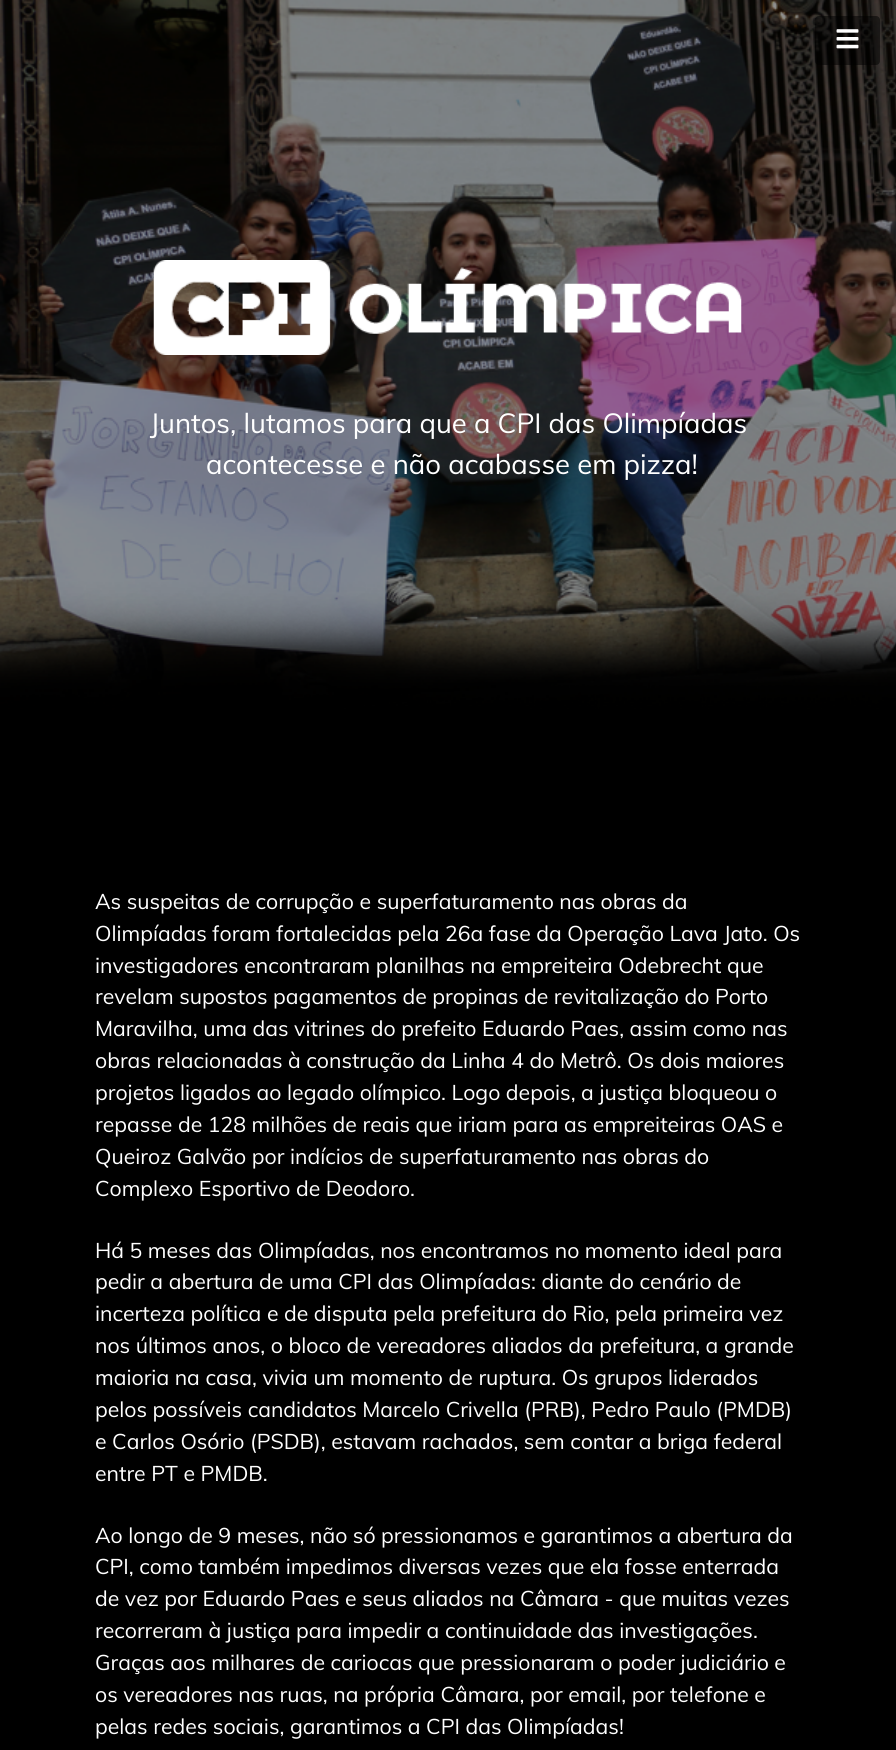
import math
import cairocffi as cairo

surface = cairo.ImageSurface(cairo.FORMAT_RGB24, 896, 1750)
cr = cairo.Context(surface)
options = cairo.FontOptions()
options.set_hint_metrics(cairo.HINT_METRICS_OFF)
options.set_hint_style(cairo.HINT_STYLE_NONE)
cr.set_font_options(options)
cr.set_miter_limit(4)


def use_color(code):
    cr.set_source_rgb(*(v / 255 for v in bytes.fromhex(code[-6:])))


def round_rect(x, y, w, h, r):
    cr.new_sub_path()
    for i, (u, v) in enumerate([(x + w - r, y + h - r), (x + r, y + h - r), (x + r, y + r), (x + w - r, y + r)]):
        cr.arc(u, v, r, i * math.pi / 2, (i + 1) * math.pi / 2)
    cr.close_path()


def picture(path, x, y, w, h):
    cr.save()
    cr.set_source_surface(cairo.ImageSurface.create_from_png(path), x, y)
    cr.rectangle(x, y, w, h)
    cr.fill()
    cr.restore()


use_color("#ffffff")
cr.paint()
picture("img2.png", 0, 0, 896, 785)
cr.set_source_rgba(0, 0, 0, 0.5)
round_rect(815, 16, 65, 49, 4)
cr.fill()
picture("img1.png", 836, 29, 23, 20)
picture("img3.png", 153, 260, 589, 95)
cr.select_font_face("Muli")
cr.set_font_size(27.5)
use_color("#ffffff")
cr.move_to(150, 433)
cr.show_text("Juntos, lutamos para que a CPI das Olimpíadas")
cr.move_to(206, 474)
cr.show_text("acontecesse e não acabasse em pizza!")
use_color("#000000")
cr.rectangle(0, 785, 896, 965)
cr.fill()
cr.set_font_size(21.25)
use_color("#ffffff")
cr.move_to(95, 909)
cr.show_text("As suspeitas de corrupção e superfaturamento nas obras da")
cr.move_to(95, 941)
cr.show_text("Olimpíadas foram fortalecidas pela 26a fase da Operação Lava Jato. Os")
cr.move_to(95, 973)
cr.show_text("investigadores encontraram planilhas na empreiteira Odebrecht que")
cr.move_to(95, 1004)
cr.show_text("revelam supostos pagamentos de propinas de revitalização do Porto")
cr.move_to(95, 1036)
cr.show_text("Maravilha, uma das vitrines do prefeito Eduardo Paes, assim como nas")
cr.move_to(95, 1068)
cr.show_text("obras relacionadas à construção da Linha 4 do Metrô. Os dois maiores")
cr.move_to(95, 1100)
cr.show_text("projetos ligados ao legado olímpico. Logo depois, a justiça bloqueou o")
cr.move_to(95, 1132)
cr.show_text("repasse de 128 milhões de reais que iriam para as empreiteiras OAS e")
cr.move_to(95, 1164)
cr.show_text("Queiroz Galvão por indícios de superfaturamento nas obras do")
cr.move_to(95, 1196)
cr.show_text("Complexo Esportivo de Deodoro.")
cr.move_to(95, 1258)
cr.show_text("Há 5 meses das Olimpíadas, nos encontramos no momento ideal para")
cr.move_to(95, 1289)
cr.show_text("pedir a abertura de uma CPI das Olimpíadas: diante do cenário de")
cr.move_to(95, 1321)
cr.show_text("incerteza política e de disputa pela prefeitura do Rio, pela primeira vez")
cr.move_to(95, 1353)
cr.show_text("nos últimos anos, o bloco de vereadores aliados da prefeitura, a grande")
cr.move_to(95, 1385)
cr.show_text("maioria na casa, vivia um momento de ruptura. Os grupos liderados")
cr.move_to(95, 1417)
cr.show_text("pelos possíveis candidatos Marcelo Crivella (PRB), Pedro Paulo (PMDB)")
cr.move_to(95, 1449)
cr.show_text("e Carlos Osório (PSDB), estavam rachados, sem contar a briga federal")
cr.move_to(95, 1481)
cr.show_text("entre PT e PMDB.")
cr.move_to(95, 1543)
cr.show_text("Ao longo de 9 meses, não só pressionamos e garantimos a abertura da")
cr.move_to(95, 1574)
cr.show_text("CPI, como também impedimos diversas vezes que ela fosse enterrada")
cr.move_to(95, 1606)
cr.show_text("de vez por Eduardo Paes e seus aliados na Câmara - que muitas vezes")
cr.move_to(95, 1638)
cr.show_text("recorreram à justiça para impedir a continuidade das investigações.")
cr.move_to(95, 1670)
cr.show_text("Graças aos milhares de cariocas que pressionaram o poder judiciário e")
cr.move_to(95, 1702)
cr.show_text("os vereadores nas ruas, na própria Câmara, por email, por telefone e")
cr.move_to(95, 1734)
cr.show_text("pelas redes sociais, garantimos a CPI das Olimpíadas!")
surface.write_to_png("result.png")
